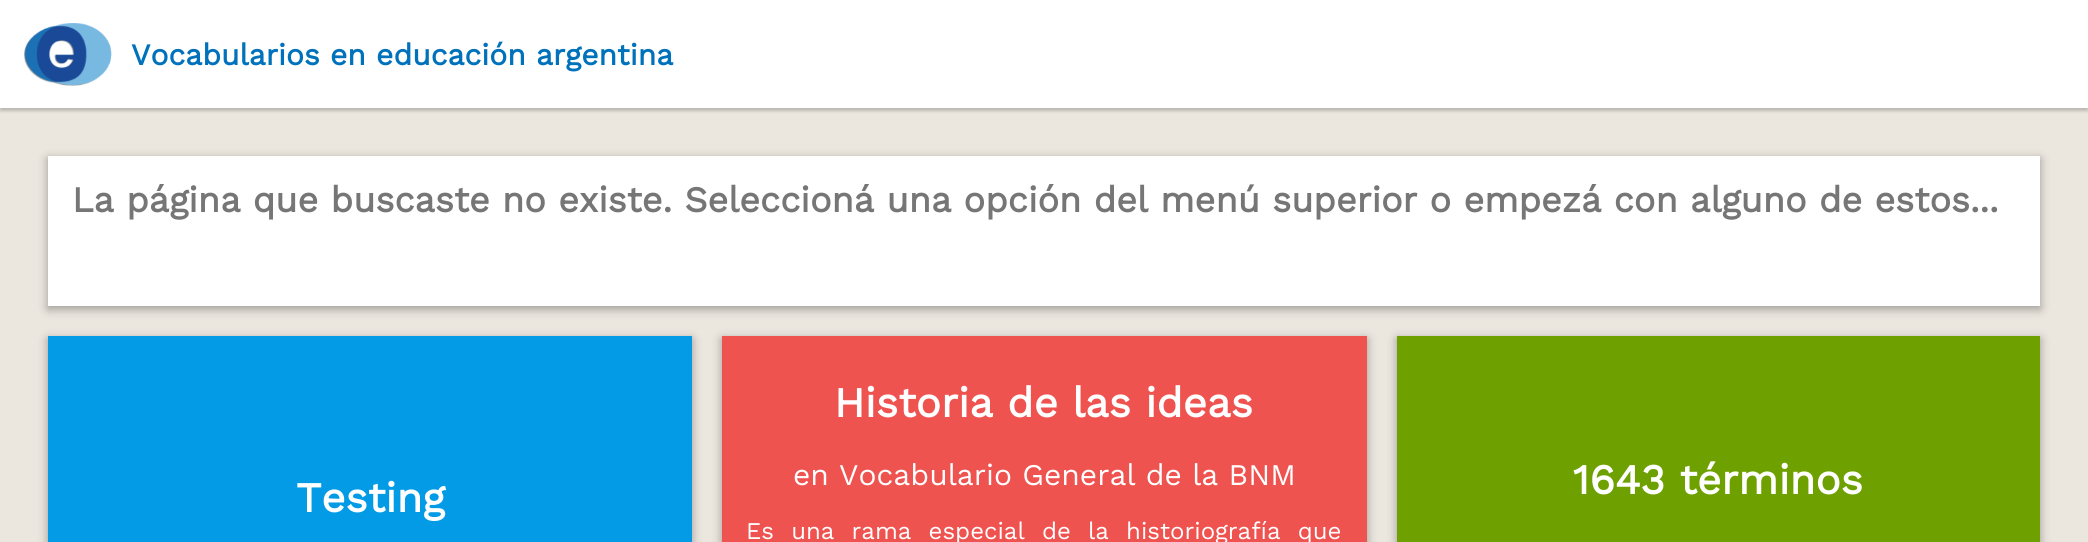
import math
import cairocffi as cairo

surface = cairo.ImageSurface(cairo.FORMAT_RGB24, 2088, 542)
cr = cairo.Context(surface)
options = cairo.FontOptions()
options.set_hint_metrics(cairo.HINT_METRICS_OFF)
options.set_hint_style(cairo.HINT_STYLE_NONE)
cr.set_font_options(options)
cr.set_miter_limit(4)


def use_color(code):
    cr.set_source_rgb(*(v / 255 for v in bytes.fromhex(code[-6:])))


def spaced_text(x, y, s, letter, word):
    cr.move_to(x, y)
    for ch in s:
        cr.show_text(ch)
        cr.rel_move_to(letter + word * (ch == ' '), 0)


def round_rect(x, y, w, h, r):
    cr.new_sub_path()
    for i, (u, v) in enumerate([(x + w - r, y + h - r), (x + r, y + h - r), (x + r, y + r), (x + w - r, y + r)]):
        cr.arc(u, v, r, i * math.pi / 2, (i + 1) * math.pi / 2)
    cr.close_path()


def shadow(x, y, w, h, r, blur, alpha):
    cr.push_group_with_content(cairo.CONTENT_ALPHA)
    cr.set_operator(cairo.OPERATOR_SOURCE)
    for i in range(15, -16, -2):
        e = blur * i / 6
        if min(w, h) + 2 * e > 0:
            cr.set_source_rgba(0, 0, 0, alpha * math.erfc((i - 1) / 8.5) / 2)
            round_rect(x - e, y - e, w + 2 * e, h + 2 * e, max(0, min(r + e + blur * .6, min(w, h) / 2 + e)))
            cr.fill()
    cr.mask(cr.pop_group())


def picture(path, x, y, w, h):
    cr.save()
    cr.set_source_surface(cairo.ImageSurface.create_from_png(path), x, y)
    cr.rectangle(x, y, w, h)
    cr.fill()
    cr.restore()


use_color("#ebe7df")
cr.paint()
use_color("#000000")
shadow(0, 3, 2088, 108, 0, 1.5, 0.2)
use_color("#ffffff")
cr.rectangle(0, 0, 2088, 108)
cr.fill()
picture("img1.png", 24, 23, 88, 63)
cr.select_font_face("Work Sans", cairo.FONT_SLANT_NORMAL, cairo.FONT_WEIGHT_BOLD)
cr.set_font_size(30)
use_color("#0072bb")
cr.move_to(131, 65)
cr.show_text("Vocabularios en educación argentina")
use_color("#000000")
shadow(48, 159, 1992, 150, 0, 5, 0.34)
use_color("#ffffff")
cr.rectangle(48, 156, 1992, 150)
cr.fill()
cr.set_font_size(36)
use_color("#767676")
cr.move_to(72, 212)
cr.show_text("La página que buscaste no existe. Seleccioná una opción del menú superior o empezá con alguno de estos...")
use_color("#000000")
shadow(48, 339, 644, 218, 0, 5, 0.34)
use_color("#039be5")
cr.rectangle(48, 336, 644, 206)
cr.fill()
cr.set_font_size(42)
use_color("#ffffff")
cr.move_to(296, 512)
cr.show_text("Testing")
use_color("#000000")
shadow(722, 339, 645, 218, 0, 5, 0.34)
use_color("#ef5350")
cr.rectangle(722, 336, 645, 206)
cr.fill()
use_color("#ffffff")
cr.move_to(834, 417)
cr.show_text("Historia de las ideas")
cr.select_font_face("Work Sans")
cr.set_font_size(30)
cr.move_to(793, 485)
cr.show_text("en Vocabulario General de la BNM")
cr.set_font_size(24)
spaced_text(746, 539, "Es una rama especial de la historiografía que", 0, 9)
use_color("#000000")
shadow(1397, 339, 643, 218, 0, 5, 0.34)
use_color("#6ea100")
cr.rectangle(1397, 336, 643, 206)
cr.fill()
cr.select_font_face("Work Sans", cairo.FONT_SLANT_NORMAL, cairo.FONT_WEIGHT_BOLD)
cr.set_font_size(42)
use_color("#ffffff")
cr.move_to(1573, 494)
cr.show_text("1643 términos")
surface.write_to_png("result.png")
